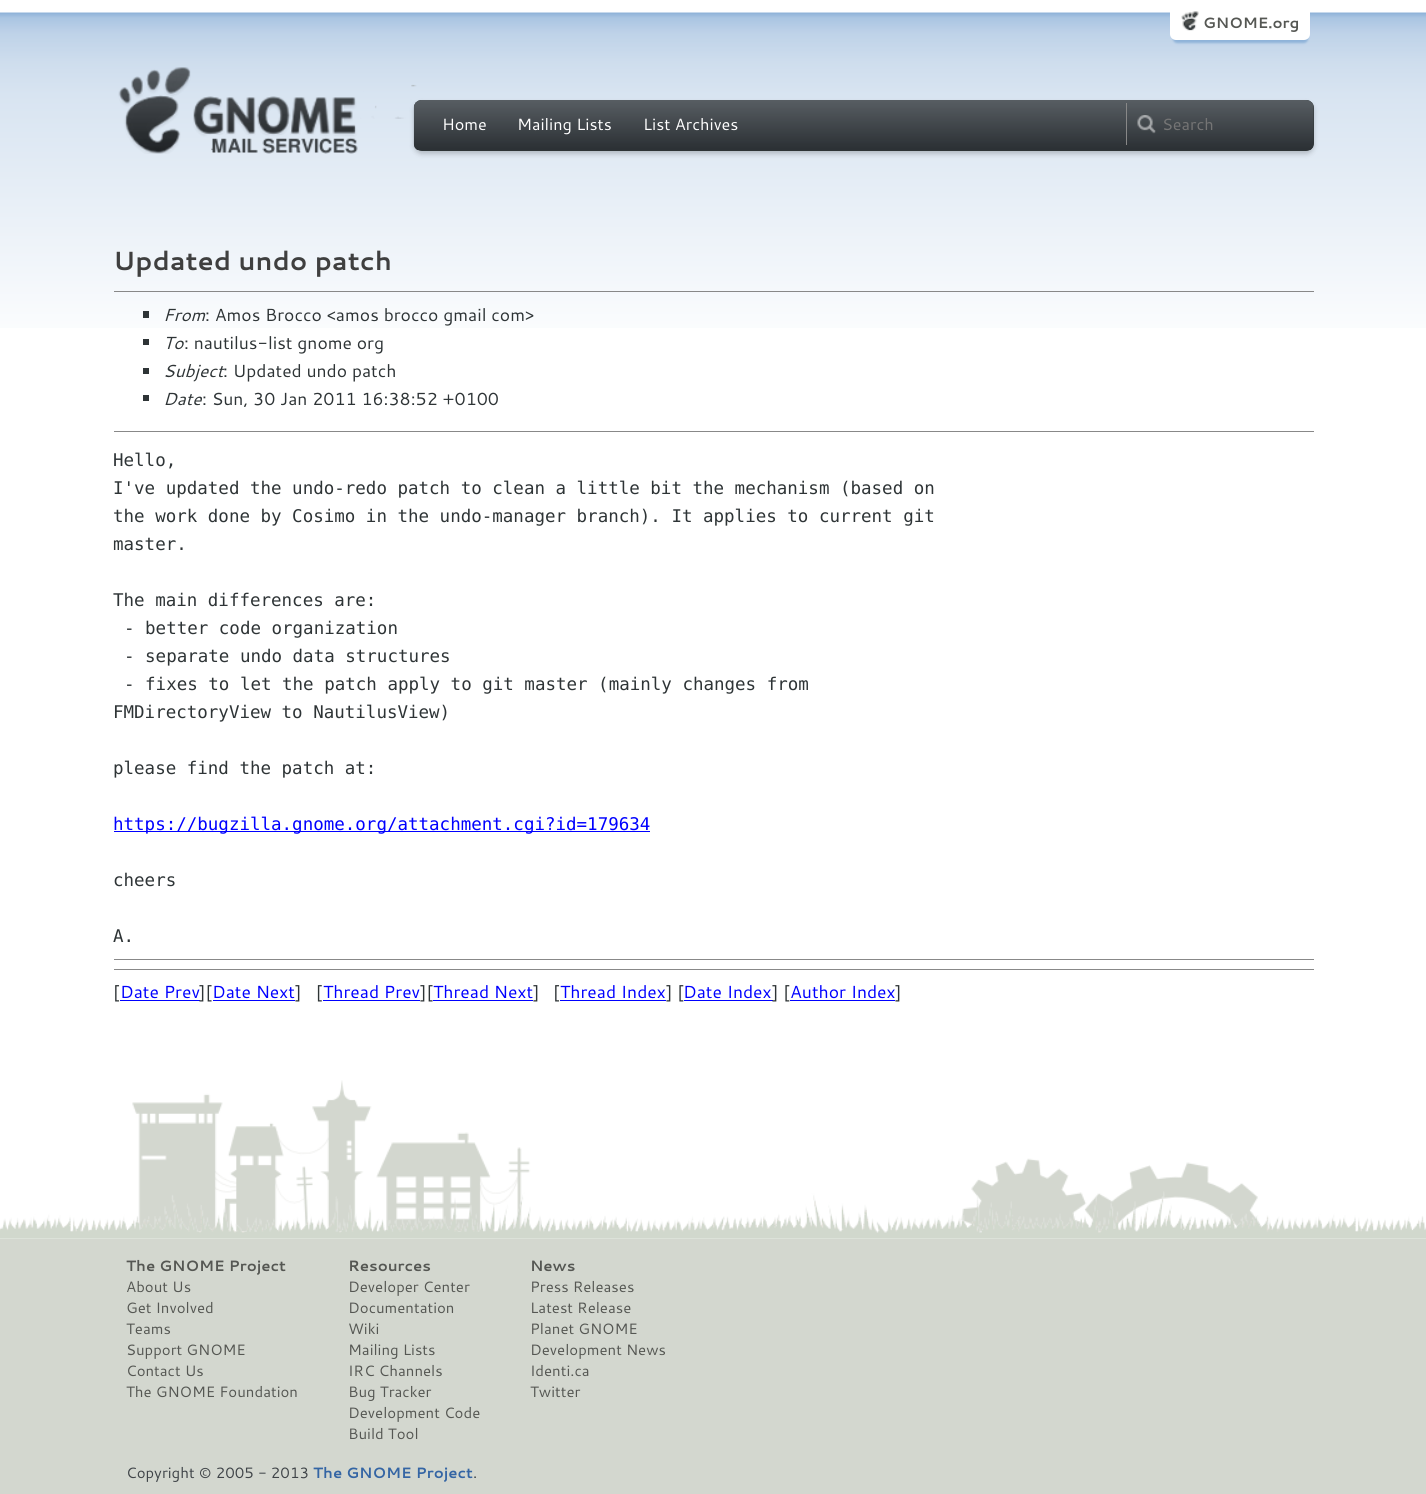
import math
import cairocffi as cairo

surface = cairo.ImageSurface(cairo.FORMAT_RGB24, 1426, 1494)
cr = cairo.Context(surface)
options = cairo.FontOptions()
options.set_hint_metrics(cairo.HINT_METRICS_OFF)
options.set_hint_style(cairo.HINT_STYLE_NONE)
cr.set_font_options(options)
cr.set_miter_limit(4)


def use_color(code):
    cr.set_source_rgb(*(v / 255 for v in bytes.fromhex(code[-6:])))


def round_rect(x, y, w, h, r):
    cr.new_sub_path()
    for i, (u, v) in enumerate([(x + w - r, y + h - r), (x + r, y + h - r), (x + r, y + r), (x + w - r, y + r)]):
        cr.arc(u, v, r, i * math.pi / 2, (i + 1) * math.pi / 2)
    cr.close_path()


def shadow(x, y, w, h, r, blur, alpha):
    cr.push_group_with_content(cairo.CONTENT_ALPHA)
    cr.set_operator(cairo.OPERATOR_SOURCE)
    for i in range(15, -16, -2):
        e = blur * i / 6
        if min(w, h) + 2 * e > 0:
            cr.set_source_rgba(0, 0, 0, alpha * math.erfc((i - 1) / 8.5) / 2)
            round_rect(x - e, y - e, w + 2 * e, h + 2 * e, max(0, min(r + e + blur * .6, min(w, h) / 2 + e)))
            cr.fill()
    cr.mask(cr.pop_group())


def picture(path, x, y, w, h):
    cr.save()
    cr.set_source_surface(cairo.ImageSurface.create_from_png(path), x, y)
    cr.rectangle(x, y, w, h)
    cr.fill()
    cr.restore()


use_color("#ffffff")
cr.paint()
picture("img1.png", 0, 12, 1426, 316)
use_color("#8fb3d9")
shadow(1173, 13, 135, 30, 4, 1, 1)
use_color("#ffffff")
round_rect(1170, 5, 140, 35, 6)
cr.fill()
picture("img2.png", 1181, 11, 18, 20)
cr.select_font_face("Cantarell", cairo.FONT_SLANT_NORMAL, cairo.FONT_WEIGHT_BOLD)
cr.set_font_size(15)
use_color("#555753")
cr.move_to(1203, 28)
cr.show_text("GNOME.org")
picture("img3.png", 118, 67, 299, 87)
use_color("#000000")
shadow(414, 103, 900, 51, 8, 2.5, 0.2)
use_color("#2e3436")
round_rect(414, 100, 900, 51, 8)
cr.fill()
picture("img4.png", 413, 100, 901, 50)
cr.select_font_face("Cantarell")
cr.set_font_size(16.25)
use_color("#ffffff")
cr.move_to(442, 130)
cr.show_text("Home")
cr.move_to(517, 130)
cr.show_text("Mailing Lists")
cr.move_to(643, 130)
cr.show_text("List Archives")
picture("img5.png", 1137, 115, 19, 19)
use_color("#888888")
cr.rectangle(1126, 103, 1, 42)
cr.fill()
use_color("#757575")
cr.move_to(1162, 130)
cr.show_text("Search")
cr.select_font_face("Cantarell", cairo.FONT_SLANT_NORMAL, cairo.FONT_WEIGHT_BOLD)
cr.set_font_size(26.25)
use_color("#3f3f3f")
cr.move_to(113, 270)
cr.show_text("Updated undo patch")
use_color("#888888")
cr.rectangle(114, 291, 1200, 1)
cr.fill()
use_color("#2e3436")
cr.rectangle(143, 311, 6, 7)
cr.fill()
cr.select_font_face("Cantarell", cairo.FONT_SLANT_ITALIC)
cr.set_font_size(17.5)
cr.move_to(163, 321)
cr.show_text("From")
cr.select_font_face("Cantarell")
cr.move_to(205, 321)
cr.show_text(": Amos Brocco <amos brocco gmail com>")
cr.rectangle(143, 339, 6, 6)
cr.fill()
cr.select_font_face("Cantarell", cairo.FONT_SLANT_ITALIC)
cr.move_to(163, 349)
cr.show_text("To")
cr.select_font_face("Cantarell")
cr.move_to(184, 349)
cr.show_text(": nautilus-list gnome org")
cr.rectangle(143, 368, 6, 6)
cr.fill()
cr.select_font_face("Cantarell", cairo.FONT_SLANT_ITALIC)
cr.move_to(163, 377)
cr.show_text("Subject")
cr.select_font_face("Cantarell")
cr.move_to(223, 377)
cr.show_text(": Updated undo patch")
cr.rectangle(143, 395, 6, 6)
cr.fill()
cr.select_font_face("Cantarell", cairo.FONT_SLANT_ITALIC)
cr.move_to(163, 405)
cr.show_text("Date")
cr.select_font_face("Cantarell")
cr.move_to(202, 405)
cr.show_text(": Sun, 30 Jan 2011 16:38:52 +0100")
use_color("#888888")
cr.rectangle(114, 431, 1200, 1)
cr.fill()
cr.select_font_face("DejaVu Sans Mono")
use_color("#2e3436")
cr.move_to(113, 466)
cr.show_text("Hello,")
cr.move_to(113, 494)
cr.show_text("I've updated the undo-redo patch to clean a little bit the mechanism (based on")
cr.move_to(113, 522)
cr.show_text("the work done by Cosimo in the undo-manager branch). It applies to current git")
cr.move_to(113, 550)
cr.show_text("master.")
cr.move_to(113, 606)
cr.show_text("The main differences are:")
cr.move_to(124, 634)
cr.show_text("- better code organization")
cr.move_to(124, 662)
cr.show_text("- separate undo data structures")
cr.move_to(124, 690)
cr.show_text("- fixes to let the patch apply to git master (mainly changes from")
cr.move_to(113, 718)
cr.show_text("FMDirectoryView to NautilusView)")
cr.move_to(113, 774)
cr.show_text("please find the patch at:")
use_color("#0000ff")
cr.rectangle(114, 831, 536, 1)
cr.fill()
cr.move_to(113, 830)
cr.show_text("https://bugzilla.gnome.org/attachment.cgi?id=179634")
use_color("#2e3436")
cr.move_to(113, 886)
cr.show_text("cheers")
cr.move_to(113, 942)
cr.show_text("A.")
use_color("#888888")
cr.rectangle(114, 959, 1200, 1)
cr.fill()
cr.rectangle(114, 969, 1200, 1)
cr.fill()
cr.select_font_face("Cantarell")
use_color("#2e3436")
cr.move_to(113, 998)
cr.show_text("[")
use_color("#0000ff")
cr.move_to(120, 998)
cr.show_text("Date Prev")
cr.rectangle(120, 1000, 80, 1)
cr.fill()
use_color("#2e3436")
cr.move_to(199, 998)
cr.show_text("][")
use_color("#0000ff")
cr.move_to(212, 998)
cr.show_text("Date Next")
cr.rectangle(213, 1000, 82, 1)
cr.fill()
use_color("#2e3436")
cr.move_to(295, 998)
cr.show_text("]   [")
use_color("#0000ff")
cr.move_to(323, 998)
cr.show_text("Thread Prev")
cr.rectangle(323, 1000, 97, 1)
cr.fill()
use_color("#2e3436")
cr.move_to(420, 998)
cr.show_text("][")
use_color("#0000ff")
cr.move_to(433, 998)
cr.show_text("Thread Next")
cr.rectangle(433, 1000, 100, 1)
cr.fill()
use_color("#2e3436")
cr.move_to(533, 998)
cr.show_text("]")
cr.move_to(553, 998)
cr.show_text("[")
use_color("#0000ff")
cr.move_to(560, 998)
cr.show_text("Thread Index")
cr.rectangle(560, 1000, 106, 1)
cr.fill()
use_color("#2e3436")
cr.move_to(666, 998)
cr.show_text("] [")
use_color("#0000ff")
cr.move_to(683, 998)
cr.show_text("Date Index")
cr.rectangle(684, 1000, 89, 1)
cr.fill()
use_color("#2e3436")
cr.move_to(772, 998)
cr.show_text("] [")
use_color("#0000ff")
cr.move_to(790, 998)
cr.show_text("Author Index")
cr.rectangle(790, 1000, 105, 1)
cr.fill()
use_color("#2e3436")
cr.move_to(895, 998)
cr.show_text("]")
picture("img6.png", 132, 1080, 1148, 152)
picture("img7.png", 0, 1191, 1426, 48)
use_color("#d3d7cf")
cr.rectangle(0, 1239, 1426, 255)
cr.fill()
cr.select_font_face("Cantarell", cairo.FONT_SLANT_NORMAL, cairo.FONT_WEIGHT_BOLD)
cr.set_font_size(15)
use_color("#555753")
cr.move_to(126, 1271)
cr.show_text("The GNOME Project")
cr.select_font_face("Cantarell")
cr.move_to(126, 1292)
cr.show_text("About Us")
cr.move_to(126, 1313)
cr.show_text("Get Involved")
cr.move_to(126, 1334)
cr.show_text("Teams")
cr.move_to(126, 1355)
cr.show_text("Support GNOME")
cr.move_to(126, 1376)
cr.show_text("Contact Us")
cr.move_to(126, 1397)
cr.show_text("The GNOME Foundation")
cr.select_font_face("Cantarell", cairo.FONT_SLANT_NORMAL, cairo.FONT_WEIGHT_BOLD)
cr.move_to(348, 1271)
cr.show_text("Resources")
cr.select_font_face("Cantarell")
cr.move_to(348, 1292)
cr.show_text("Developer Center")
cr.move_to(348, 1313)
cr.show_text("Documentation")
cr.move_to(348, 1334)
cr.show_text("Wiki")
cr.move_to(348, 1355)
cr.show_text("Mailing Lists")
cr.move_to(348, 1376)
cr.show_text("IRC Channels")
cr.move_to(348, 1397)
cr.show_text("Bug Tracker")
cr.move_to(348, 1418)
cr.show_text("Development Code")
cr.move_to(348, 1439)
cr.show_text("Build Tool")
cr.select_font_face("Cantarell", cairo.FONT_SLANT_NORMAL, cairo.FONT_WEIGHT_BOLD)
cr.move_to(530, 1271)
cr.show_text("News")
cr.select_font_face("Cantarell")
cr.move_to(530, 1292)
cr.show_text("Press Releases")
cr.move_to(530, 1313)
cr.show_text("Latest Release")
cr.move_to(530, 1334)
cr.show_text("Planet GNOME")
cr.move_to(530, 1355)
cr.show_text("Development News")
cr.move_to(530, 1376)
cr.show_text("Identi.ca")
cr.move_to(530, 1397)
cr.show_text("Twitter")
use_color("#3f4448")
cr.move_to(126, 1478)
cr.show_text("Copyright © 2005 - 2013")
cr.select_font_face("Cantarell", cairo.FONT_SLANT_NORMAL, cairo.FONT_WEIGHT_BOLD)
use_color("#3465a4")
cr.move_to(313, 1478)
cr.show_text("The GNOME Project")
cr.select_font_face("Cantarell")
use_color("#3f4448")
cr.move_to(473, 1478)
cr.show_text(".")
surface.write_to_png("result.png")
